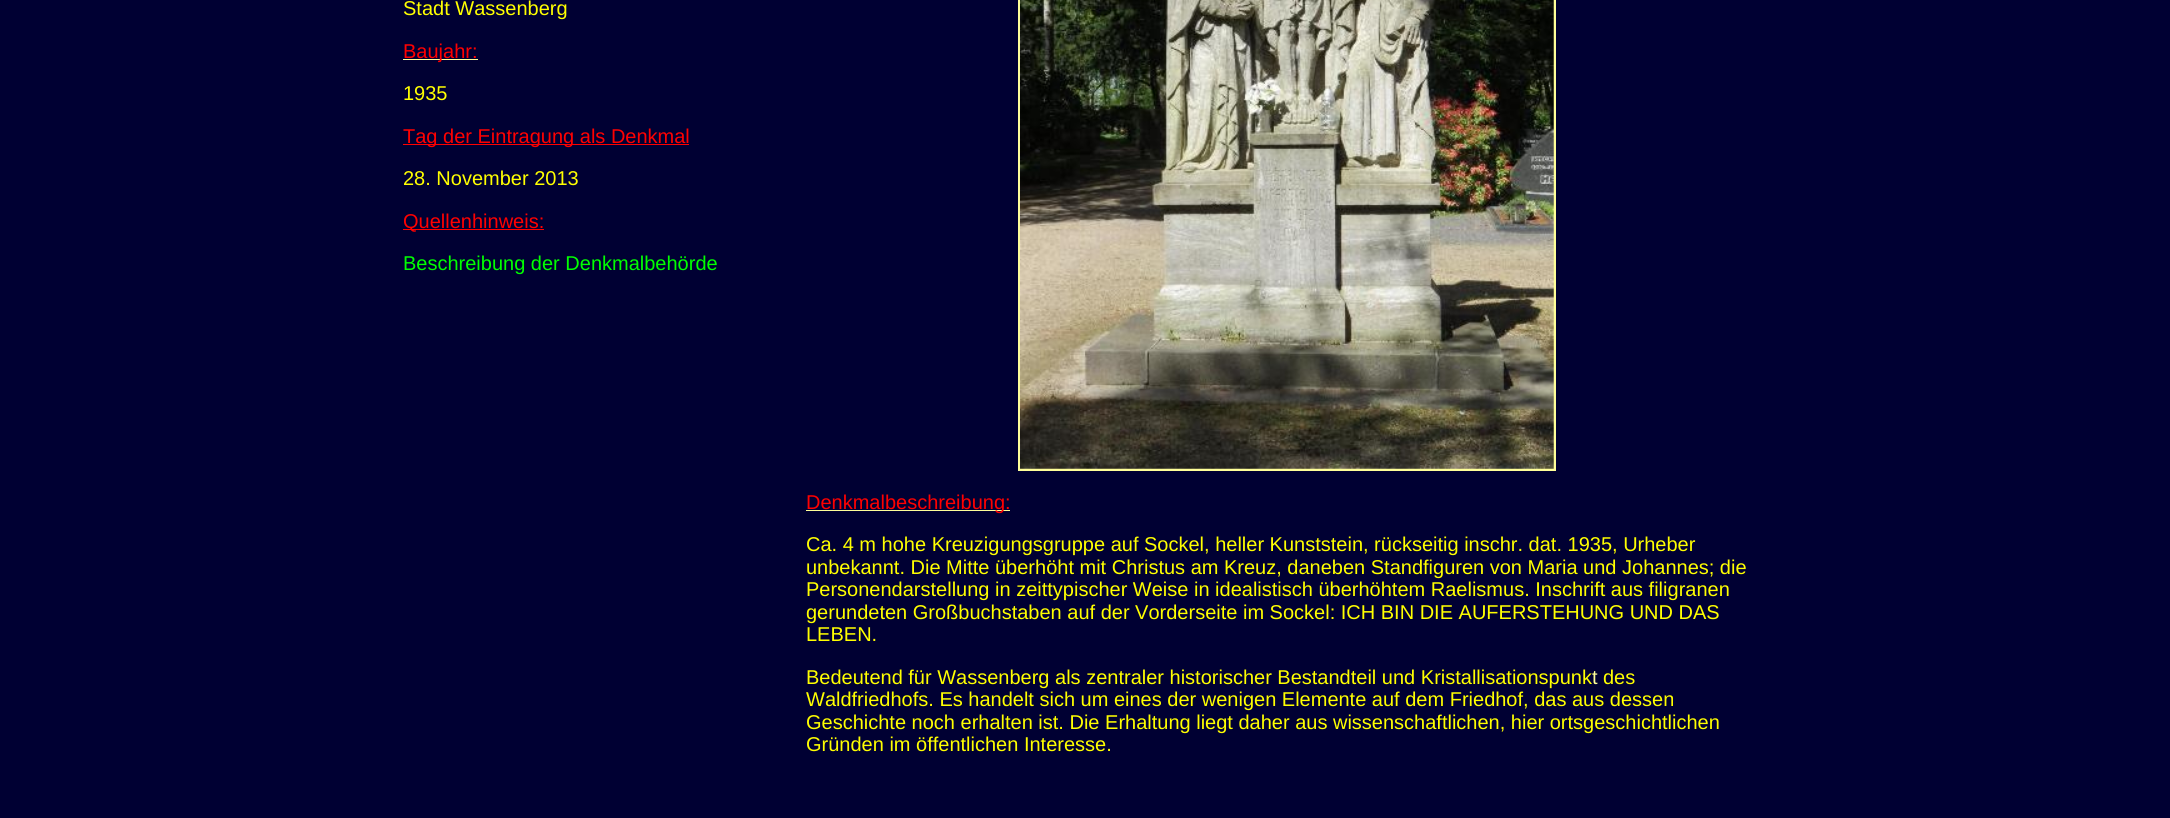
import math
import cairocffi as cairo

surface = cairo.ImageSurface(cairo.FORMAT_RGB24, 2170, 818)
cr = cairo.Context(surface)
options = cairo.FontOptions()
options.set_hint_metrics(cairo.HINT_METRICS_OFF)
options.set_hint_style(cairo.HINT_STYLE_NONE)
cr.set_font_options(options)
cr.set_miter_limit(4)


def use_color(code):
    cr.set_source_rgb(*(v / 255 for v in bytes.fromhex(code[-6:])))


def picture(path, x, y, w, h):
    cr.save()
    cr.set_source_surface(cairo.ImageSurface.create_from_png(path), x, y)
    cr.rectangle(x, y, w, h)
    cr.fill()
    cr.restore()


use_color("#000033")
cr.paint()
cr.select_font_face("Liberation Sans")
cr.set_font_size(20)
use_color("#ffff00")
cr.move_to(403, 15)
cr.show_text("Stadt Wassenberg")
use_color("#ffff99")
cr.rectangle(403, 59, 75, 1)
cr.fill()
use_color("#ff0000")
cr.move_to(403, 58)
cr.show_text("Baujahr:")
use_color("#ffff00")
cr.move_to(403, 100)
cr.show_text("1935")
use_color("#ff0000")
cr.rectangle(403, 144, 286, 1)
cr.fill()
cr.move_to(403, 143)
cr.show_text("Tag der Eintragung als Denkmal")
use_color("#ffff00")
cr.move_to(403, 185)
cr.show_text("28. November 2013")
use_color("#ff0000")
cr.rectangle(403, 229, 141, 1)
cr.fill()
cr.move_to(403, 228)
cr.show_text("Quellenhinweis:")
use_color("#00ff00")
cr.move_to(403, 270)
cr.show_text("Beschreibung der Denkmalbehörde")
cr.rectangle(1019.5, -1.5, 535, 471)
use_color("#ffff99")
cr.set_line_width(3)
cr.stroke()
picture("img1.png", 1020, 0, 534, 469)
cr.rectangle(806, 510, 204, 1)
cr.fill()
use_color("#ff0000")
cr.move_to(806, 509)
cr.show_text("Denkmalbeschreibung:")
use_color("#ffff00")
cr.move_to(806, 551)
cr.show_text("Ca. 4 m hohe Kreuzigungsgruppe auf Sockel, heller Kunststein, rückseitig inschr. dat. 1935, Urheber")
cr.move_to(806, 574)
cr.show_text("unbekannt. Die Mitte überhöht mit Christus am Kreuz, daneben Standfiguren von Maria und Johannes; die")
cr.move_to(806, 596)
cr.show_text("Personendarstellung in zeittypischer Weise in idealistisch überhöhtem Raelismus. Inschrift aus filigranen")
cr.move_to(806, 619)
cr.show_text("gerundeten Großbuchstaben auf der Vorderseite im Sockel: ICH BIN DIE AUFERSTEHUNG UND DAS")
cr.move_to(806, 641)
cr.show_text("LEBEN.")
cr.move_to(806, 684)
cr.show_text("Bedeutend für Wassenberg als zentraler historischer Bestandteil und Kristallisationspunk")
use_color("#ffff99")
cr.move_to(1592, 684)
cr.show_text("t")
use_color("#ffff00")
cr.move_to(1603, 684)
cr.show_text("des")
cr.move_to(806, 706)
cr.show_text("Waldfriedhofs. Es handelt sich um eines der wenigen Elemente auf dem Friedhof, das aus dessen")
cr.move_to(806, 729)
cr.show_text("Geschichte noch erhalten ist. Die Erhaltung liegt daher aus wissenschaftlichen, hier ortsgeschichtlichen")
cr.move_to(806, 751)
cr.show_text("Gründen im öffentlichen Interesse.")
surface.write_to_png("result.png")
